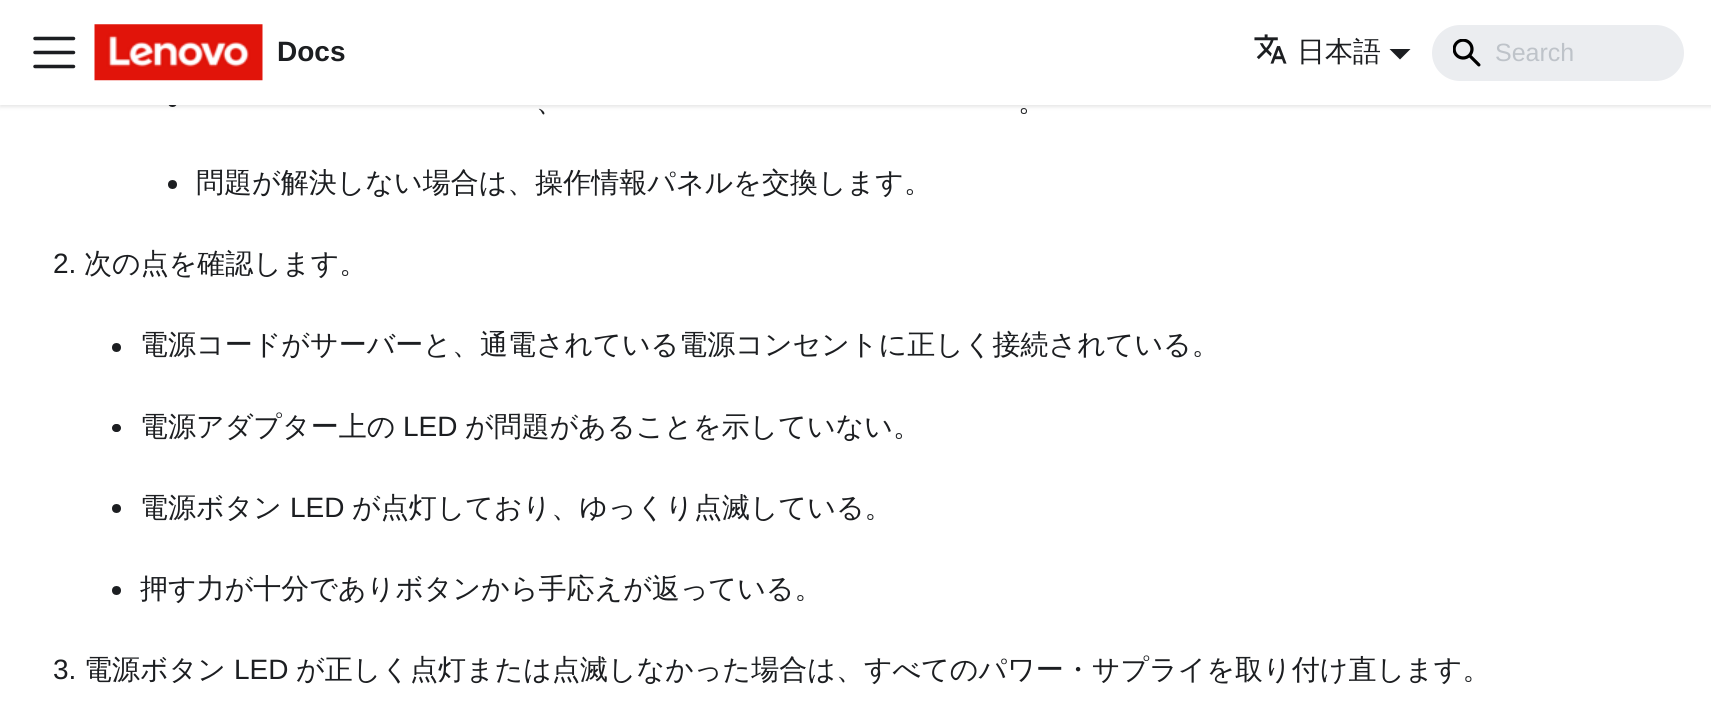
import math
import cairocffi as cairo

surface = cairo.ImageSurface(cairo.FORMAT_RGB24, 1711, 713)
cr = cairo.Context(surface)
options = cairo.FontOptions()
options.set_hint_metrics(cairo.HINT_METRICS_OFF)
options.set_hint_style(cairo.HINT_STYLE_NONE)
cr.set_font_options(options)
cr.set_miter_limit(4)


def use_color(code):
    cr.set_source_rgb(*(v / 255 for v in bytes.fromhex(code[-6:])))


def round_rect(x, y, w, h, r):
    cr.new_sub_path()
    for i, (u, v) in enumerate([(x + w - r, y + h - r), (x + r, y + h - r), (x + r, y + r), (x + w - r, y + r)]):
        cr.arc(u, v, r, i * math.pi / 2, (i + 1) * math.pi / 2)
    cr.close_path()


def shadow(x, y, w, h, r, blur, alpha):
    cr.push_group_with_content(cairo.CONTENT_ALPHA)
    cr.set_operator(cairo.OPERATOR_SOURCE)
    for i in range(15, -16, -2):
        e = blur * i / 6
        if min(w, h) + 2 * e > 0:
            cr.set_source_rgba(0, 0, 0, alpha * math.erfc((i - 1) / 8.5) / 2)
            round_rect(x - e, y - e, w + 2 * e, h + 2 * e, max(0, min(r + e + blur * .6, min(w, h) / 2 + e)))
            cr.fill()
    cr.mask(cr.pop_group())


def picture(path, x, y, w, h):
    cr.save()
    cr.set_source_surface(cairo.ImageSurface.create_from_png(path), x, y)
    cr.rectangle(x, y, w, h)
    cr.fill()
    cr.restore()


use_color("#ffffff")
cr.paint()
use_color("#1c1e21")
cr.arc(172.5, 102.5, 4.5, 0, 2 * math.pi)
cr.fill()
use_color("#000000")
shadow(0, 2, 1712, 105, 0, 2, 0.1)
use_color("#ffffff")
cr.rectangle(0, 0, 1711, 105)
cr.fill()
cr.new_path()
cr.move_to(35, 38.5)
cr.line_to(73.5, 38.5)
cr.move_to(35, 52.5)
cr.line_to(73.5, 52.5)
cr.move_to(35, 66.5)
cr.line_to(73.5, 66.5)
use_color("#1c1e21")
cr.set_line_width(3.5)
cr.set_line_cap(cairo.LINE_CAP_ROUND)
cr.stroke()
picture("img1.png", 94, 24, 169, 57)
cr.select_font_face("Liberation Sans", cairo.FONT_SLANT_NORMAL, cairo.FONT_WEIGHT_BOLD)
cr.set_font_size(28)
cr.move_to(277, 61)
cr.show_text("Docs")
picture("img2.png", 1254, 34, 33, 30)
cr.select_font_face("WenQuanYi Zen Hei Medium")
cr.move_to(1297, 61)
cr.show_text("日本語")
cr.new_path()
cr.move_to(1389.5, 49)
cr.line_to(1410.5, 49)
cr.line_to(1400, 59.5)
cr.close_path()
cr.fill()
use_color("#ebedf0")
round_rect(1432, 25, 252, 56, 28)
cr.fill()
picture("img3.png", 1453, 39, 28, 28)
cr.select_font_face("Liberation Sans")
cr.set_font_size(25)
use_color("#bec3c9")
cr.move_to(1495, 61)
cr.show_text("Search")
cr.select_font_face("WenQuanYi Zen Hei Medium")
cr.set_font_size(28)
use_color("#1c1e21")
cr.move_to(536, 111)
cr.show_text("、")
cr.move_to(1018, 111)
cr.show_text("。")
cr.new_path()
cr.arc(172.5, 184.5, 4.5, 0, 2 * math.pi)
cr.fill()
cr.move_to(196, 192)
cr.show_text("問題が解決しない場合は、操作情報パネルを交換します。")
cr.select_font_face("Liberation Sans")
cr.move_to(53, 273)
cr.show_text("2.")
cr.select_font_face("WenQuanYi Zen Hei Medium")
cr.move_to(84, 273)
cr.show_text("次の点を確認します。")
cr.new_path()
cr.arc(116.5, 347.5, 4.5, 0, 2 * math.pi)
cr.fill()
cr.move_to(140, 354)
cr.show_text("電源コードがサーバーと、通電されている電源コンセントに正しく接続されている。")
round_rect(112, 424, 9, 8, 4)
cr.fill()
cr.move_to(140, 436)
cr.show_text("電源アダプター上の")
cr.select_font_face("Liberation Sans")
cr.move_to(403, 436)
cr.show_text("LED")
cr.select_font_face("WenQuanYi Zen Hei Medium")
cr.move_to(465, 436)
cr.show_text("が問題があることを示していない。")
cr.new_path()
cr.arc(116.5, 508.5, 4.5, 0, 2 * math.pi)
cr.fill()
cr.move_to(140, 517)
cr.show_text("電源ボタン")
cr.select_font_face("Liberation Sans")
cr.move_to(290, 517)
cr.show_text("LED")
cr.select_font_face("WenQuanYi Zen Hei Medium")
cr.move_to(352, 517)
cr.show_text("が点灯しており、ゆっくり点滅している。")
cr.new_path()
cr.arc(116.5, 590.5, 4.5, 0, 2 * math.pi)
cr.fill()
cr.move_to(140, 598)
cr.show_text("押す力が十分でありボタンから手応えが返っている。")
cr.select_font_face("Liberation Sans")
cr.move_to(53, 679)
cr.show_text("3.")
cr.select_font_face("WenQuanYi Zen Hei Medium")
cr.move_to(84, 679)
cr.show_text("電源ボタン")
cr.select_font_face("Liberation Sans")
cr.move_to(234, 679)
cr.show_text("LED")
cr.select_font_face("WenQuanYi Zen Hei Medium")
cr.move_to(296, 679)
cr.show_text("が正しく点灯または点滅しなかった場合は、すべてのパワー・サプライを取り付け直します。")
surface.write_to_png("result.png")
